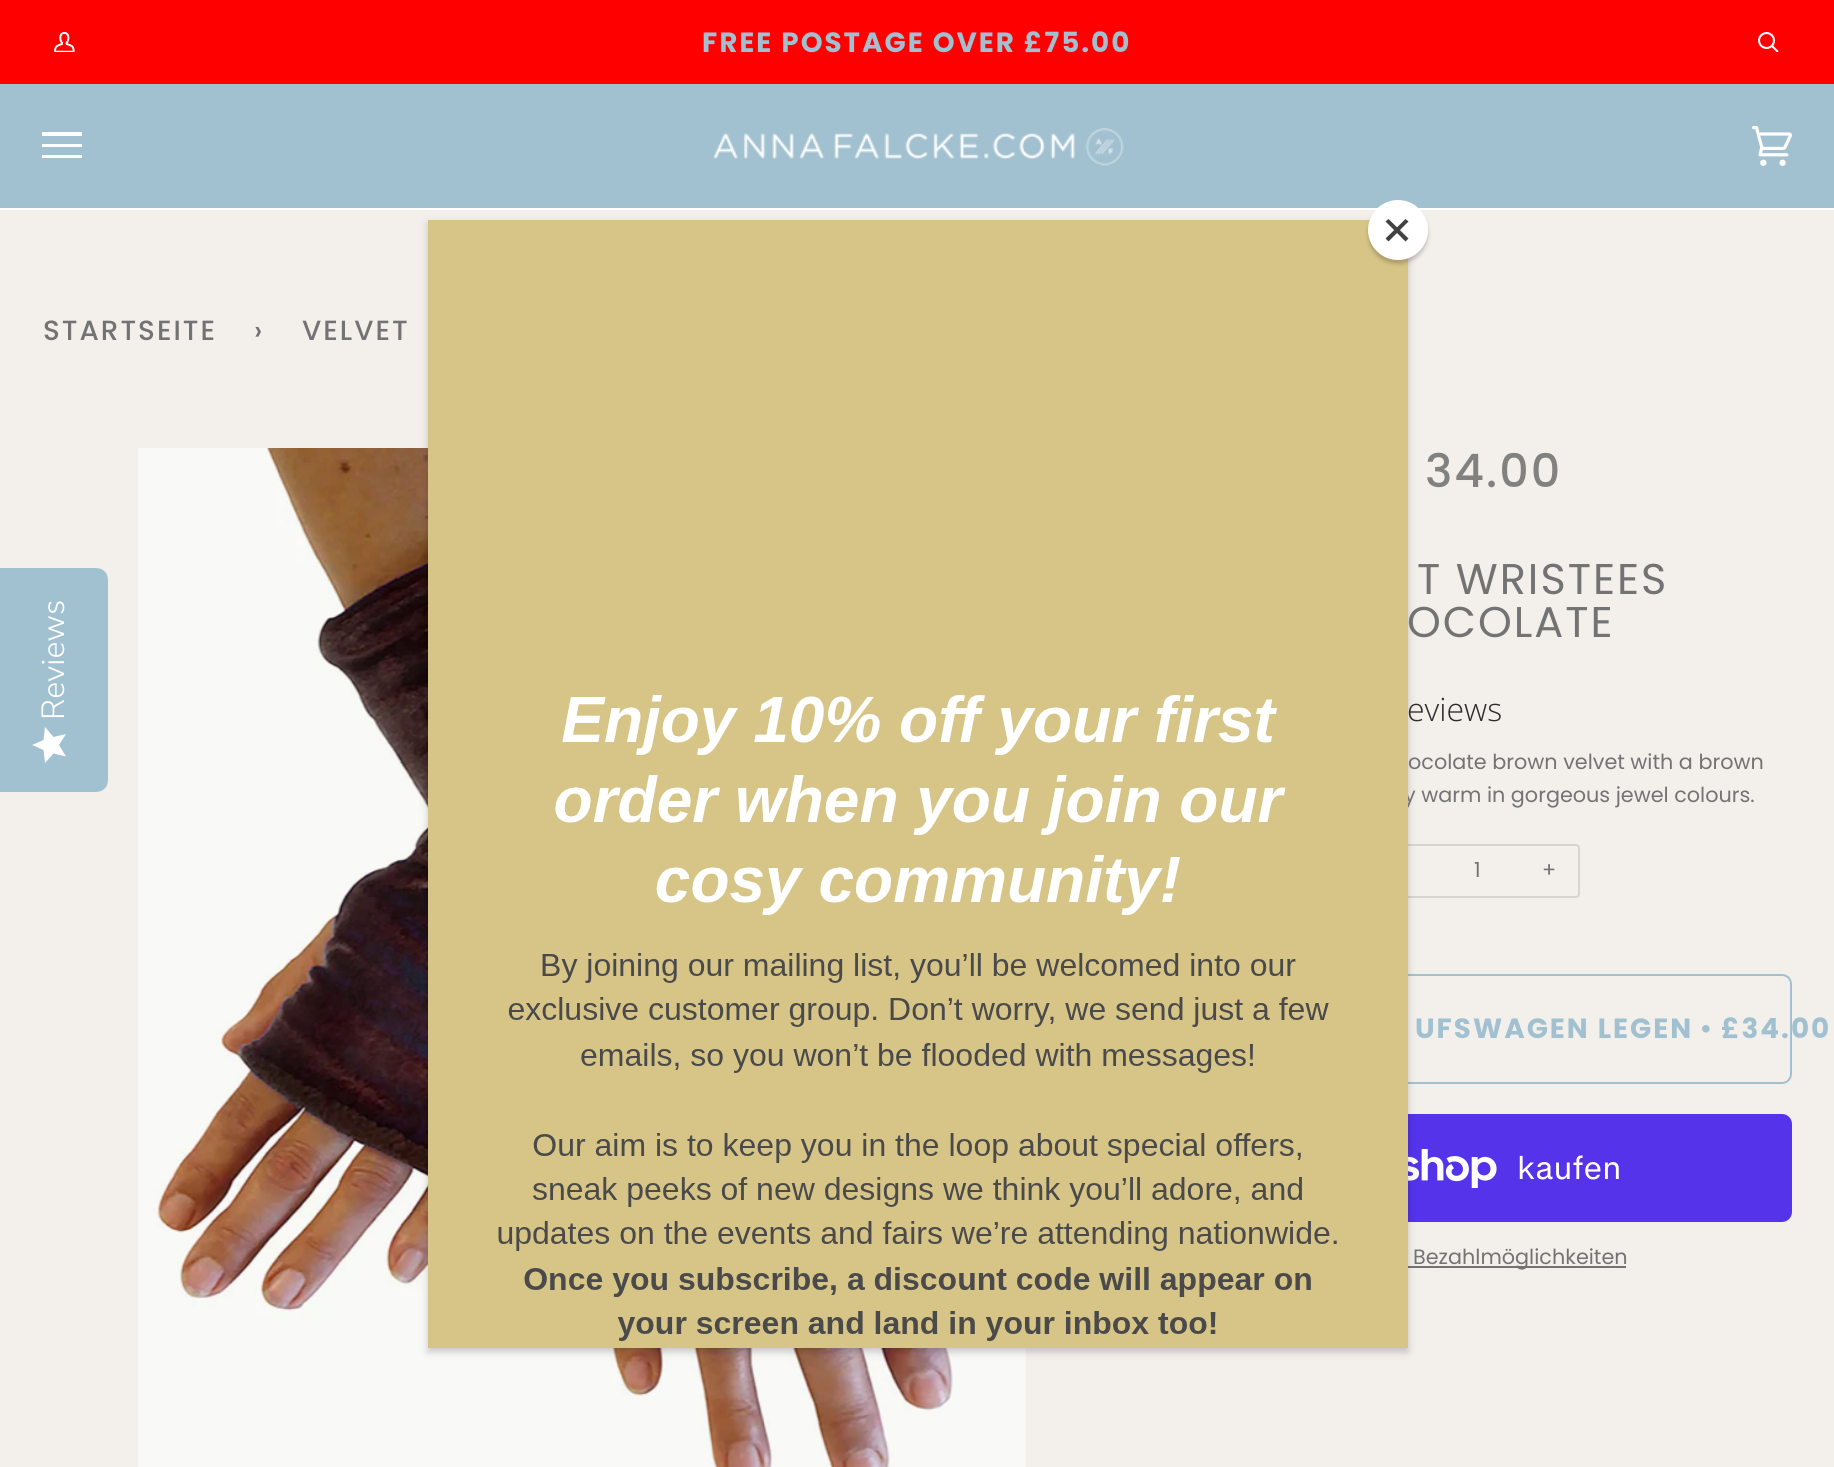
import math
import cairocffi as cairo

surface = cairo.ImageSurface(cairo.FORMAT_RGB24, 1834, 1467)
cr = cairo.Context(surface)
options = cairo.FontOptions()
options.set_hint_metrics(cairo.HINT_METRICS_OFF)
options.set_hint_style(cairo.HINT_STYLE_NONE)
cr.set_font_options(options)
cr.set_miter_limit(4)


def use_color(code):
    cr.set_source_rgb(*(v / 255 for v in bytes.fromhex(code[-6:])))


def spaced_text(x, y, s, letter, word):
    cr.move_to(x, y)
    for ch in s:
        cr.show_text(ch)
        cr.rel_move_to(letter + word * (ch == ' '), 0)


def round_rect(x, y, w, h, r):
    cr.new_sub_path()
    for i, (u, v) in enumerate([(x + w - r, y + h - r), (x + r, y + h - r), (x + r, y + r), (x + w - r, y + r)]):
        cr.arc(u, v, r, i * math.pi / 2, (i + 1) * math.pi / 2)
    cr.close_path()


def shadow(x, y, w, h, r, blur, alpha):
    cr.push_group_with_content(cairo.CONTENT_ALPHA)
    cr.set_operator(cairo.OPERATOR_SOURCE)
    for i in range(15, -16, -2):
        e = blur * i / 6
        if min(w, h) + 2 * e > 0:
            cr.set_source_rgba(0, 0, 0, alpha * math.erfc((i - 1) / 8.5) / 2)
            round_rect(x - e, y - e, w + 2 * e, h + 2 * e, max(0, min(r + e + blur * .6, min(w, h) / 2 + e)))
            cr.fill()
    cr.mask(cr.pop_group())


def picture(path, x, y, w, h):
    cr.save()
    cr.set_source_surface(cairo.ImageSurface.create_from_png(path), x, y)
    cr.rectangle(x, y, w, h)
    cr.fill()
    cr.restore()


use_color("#f3f0ec")
cr.paint()
use_color("#ff0000")
cr.rectangle(0, 0, 1834, 84)
cr.fill()
picture("img1.png", 54, 32, 21, 20)
cr.select_font_face("Poppins", cairo.FONT_SLANT_NORMAL, cairo.FONT_WEIGHT_BOLD)
cr.set_font_size(27.8)
use_color("#a2c1d0")
spaced_text(702, 52, "FREE POSTAGE OVER £75.00", 2, 0)
picture("img2.png", 1758, 32, 21, 20)
cr.rectangle(0, 84, 1834, 124)
cr.fill()
use_color("#ffffff")
cr.rectangle(0, 208, 1834, 2)
cr.fill()
cr.new_path()
cr.move_to(42, 132)
cr.line_to(82, 132)
cr.line_to(82, 136)
cr.line_to(42, 136)
cr.close_path()
cr.move_to(42, 144)
cr.line_to(82, 144)
cr.line_to(82, 147)
cr.line_to(42, 147)
cr.close_path()
cr.move_to(42, 155)
cr.line_to(82, 155)
cr.line_to(82, 158)
cr.line_to(42, 158)
cr.close_path()
cr.fill()
picture("img3.png", 713, 128, 411, 38)
picture("img4.png", 1752, 126, 40, 40)
picture("img6.png", 138, 448, 888, 1019)
round_rect(1375, 845, 204, 52, 3)
use_color("#d7d4d1")
cr.stroke()
round_rect(1165, 975, 626, 108, 9)
use_color("#a2c1d0")
cr.stroke()
use_color("#5433eb")
round_rect(1164, 1114, 628, 108, 10)
cr.fill()
picture("img7.png", 1408, 1149, 89, 39)
use_color("#737373")
cr.rectangle(1408, 1266, 218, 2)
cr.fill()
use_color("#000000")
shadow(428, 224, 980, 1128, 0, 4, 0.2)
cr.select_font_face("Poppins")
cr.set_font_size(20.75)
use_color("#737373")
cr.move_to(1404, 802)
cr.show_text("y warm in gorgeous jewel colours.")
picture("img5.png", 428, 220, 980, 1128)
use_color("#000000")
shadow(1368, 204, 60, 60, 30, 2, 0.2)
use_color("#ffffff")
cr.arc(1398, 230, 30, 0, 2 * math.pi)
cr.fill()
use_color("#414141")
cr.new_path()
cr.move_to(1405.5, 219)
cr.line_to(1408.5, 221.5)
cr.line_to(1388.5, 241.5)
cr.line_to(1385.5, 238.5)
cr.close_path()
cr.fill()
cr.new_path()
cr.move_to(1385.5, 221.5)
cr.line_to(1388.5, 219)
cr.line_to(1408.5, 238.5)
cr.line_to(1405.5, 241.5)
cr.close_path()
cr.fill()
cr.select_font_face("Poppins Medium")
cr.set_font_size(27.8)
use_color("#737373")
spaced_text(43, 340, "STARTSEITE", 2, 0)
spaced_text(254, 340, "›", 2, 0)
spaced_text(302, 340, "VELVET", 2, 0)
cr.set_font_size(46)
use_color("#818180")
spaced_text(1425, 487, "34.00", 2, 0)
cr.select_font_face("Poppins")
cr.set_font_size(43)
use_color("#737373")
spaced_text(1417, 594, "T WRISTEES", 2, 0)
spaced_text(1407, 637, "OCOLATE", 2, 0)
cr.select_font_face("Open Sans Light")
cr.set_font_size(32)
use_color("#2c2c2c")
cr.move_to(1407, 721)
cr.show_text("eviews")
cr.select_font_face("Poppins")
cr.set_font_size(20.75)
use_color("#737373")
cr.move_to(1408, 769)
cr.show_text("ocolate brown velvet with a brown")
cr.move_to(1474, 877)
cr.show_text("1")
cr.move_to(1542, 877)
cr.show_text("+")
cr.select_font_face("Poppins", cairo.FONT_SLANT_NORMAL, cairo.FONT_WEIGHT_BOLD)
cr.set_font_size(27.8)
use_color("#a2c1d0")
spaced_text(1415, 1038, "UFSWAGEN LEGEN", 2, 0)
cr.select_font_face("Liberation Serif", cairo.FONT_SLANT_NORMAL, cairo.FONT_WEIGHT_BOLD)
spaced_text(1701, 1038, "•", 2, 0)
cr.select_font_face("Poppins", cairo.FONT_SLANT_NORMAL, cairo.FONT_WEIGHT_BOLD)
spaced_text(1721, 1038, "£34.00", 2, 0)
cr.select_font_face("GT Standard")
cr.set_font_size(32)
use_color("#ffffff")
cr.move_to(1517, 1179)
cr.show_text("kaufen")
cr.select_font_face("Poppins")
cr.set_font_size(20.75)
use_color("#737373")
cr.move_to(1413, 1264)
cr.show_text("Bezahlmöglichkeiten")
use_color("#a2c1d0")
cr.new_path()
cr.move_to(0, 792)
cr.line_to(0, 568)
cr.line_to(96, 568)
cr.curve_to(103, 568, 108, 573, 108, 580)
cr.line_to(108, 780)
cr.curve_to(108, 787, 103, 792, 96, 792)
cr.close_path()
cr.fill()
cr.select_font_face("Nunito Sans Light")
cr.set_font_size(32)
use_color("#ffffff")
cr.save()
cr.translate(64, 720)
cr.rotate(-90 * math.pi / 180)
cr.move_to(0, 0)
cr.show_text("Reviews")
cr.restore()
gradient = cairo.LinearGradient(32, 763, 32, 727)
gradient.add_color_stop_rgba(1, 1, 1, 1, 1)
gradient.add_color_stop_rgba(1, 0.918, 0.918, 0.918, 1)
cr.set_source(gradient)
cr.new_path()
cr.move_to(59, 745)
cr.line_to(66, 734)
cr.line_to(53.5, 737)
cr.line_to(45, 727)
cr.line_to(43.5, 740)
cr.line_to(32, 745)
cr.line_to(43.5, 750)
cr.line_to(45, 763)
cr.line_to(53.5, 753.5)
cr.line_to(66, 756.5)
cr.close_path()
cr.fill()
surface.write_to_png("result.png")
